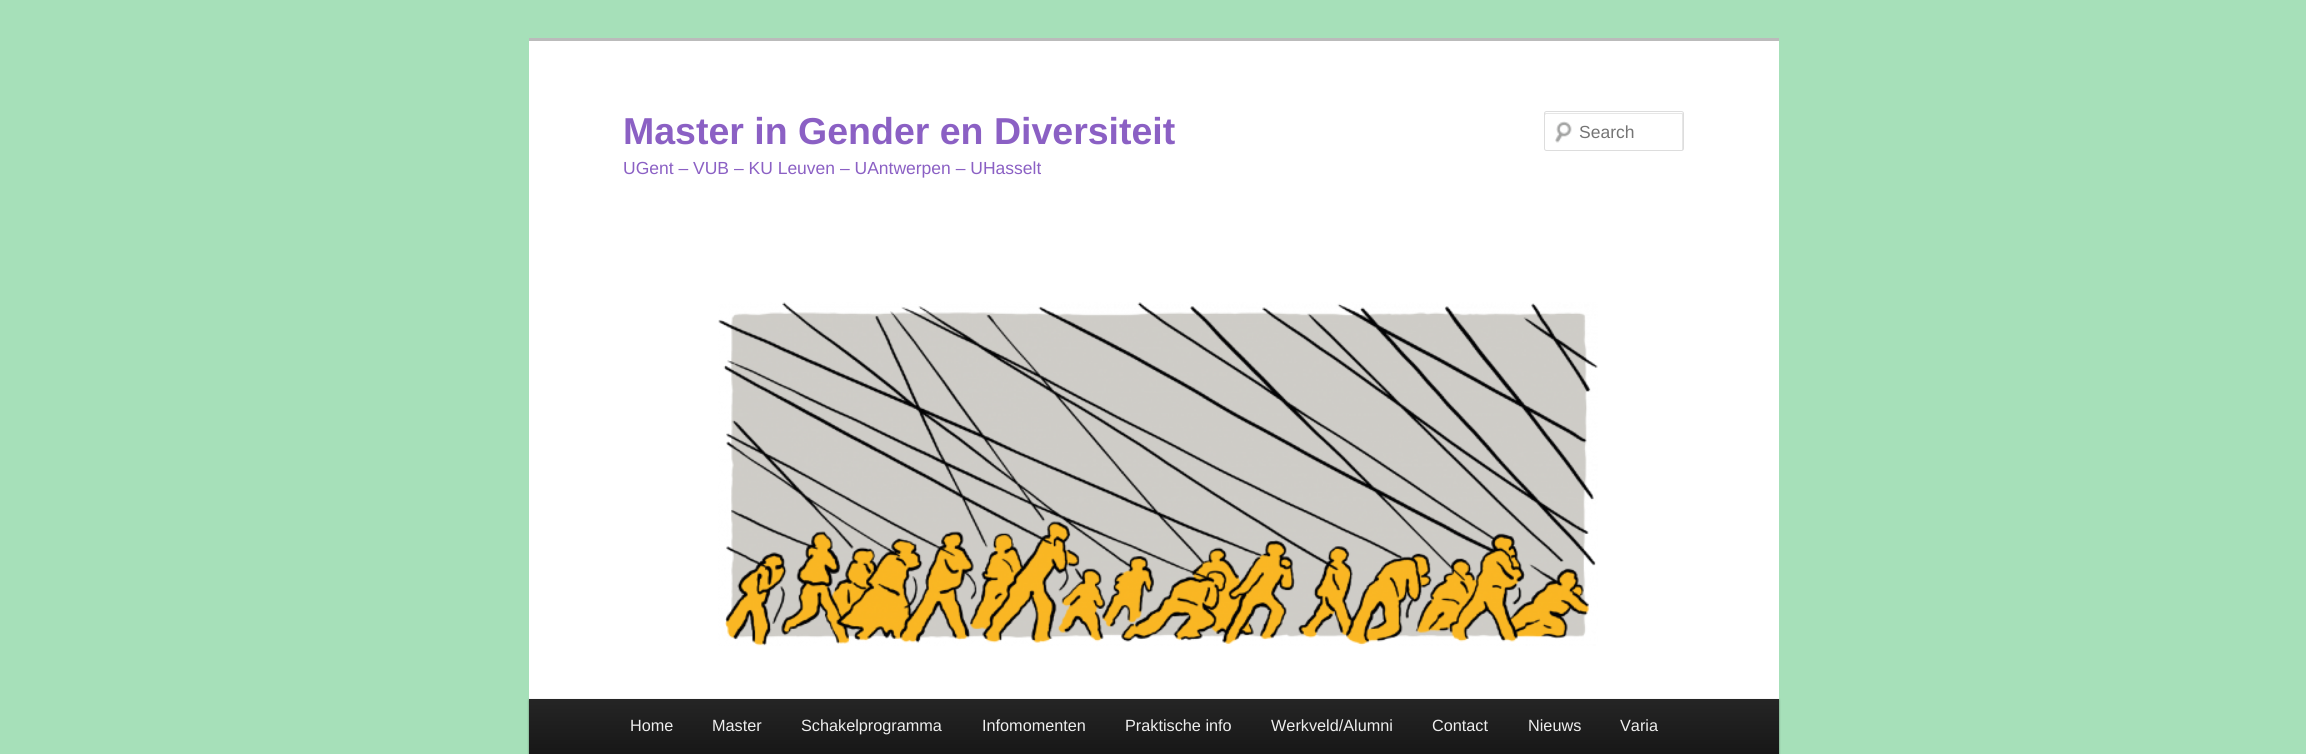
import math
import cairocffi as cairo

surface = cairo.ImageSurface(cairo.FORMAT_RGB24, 2306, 754)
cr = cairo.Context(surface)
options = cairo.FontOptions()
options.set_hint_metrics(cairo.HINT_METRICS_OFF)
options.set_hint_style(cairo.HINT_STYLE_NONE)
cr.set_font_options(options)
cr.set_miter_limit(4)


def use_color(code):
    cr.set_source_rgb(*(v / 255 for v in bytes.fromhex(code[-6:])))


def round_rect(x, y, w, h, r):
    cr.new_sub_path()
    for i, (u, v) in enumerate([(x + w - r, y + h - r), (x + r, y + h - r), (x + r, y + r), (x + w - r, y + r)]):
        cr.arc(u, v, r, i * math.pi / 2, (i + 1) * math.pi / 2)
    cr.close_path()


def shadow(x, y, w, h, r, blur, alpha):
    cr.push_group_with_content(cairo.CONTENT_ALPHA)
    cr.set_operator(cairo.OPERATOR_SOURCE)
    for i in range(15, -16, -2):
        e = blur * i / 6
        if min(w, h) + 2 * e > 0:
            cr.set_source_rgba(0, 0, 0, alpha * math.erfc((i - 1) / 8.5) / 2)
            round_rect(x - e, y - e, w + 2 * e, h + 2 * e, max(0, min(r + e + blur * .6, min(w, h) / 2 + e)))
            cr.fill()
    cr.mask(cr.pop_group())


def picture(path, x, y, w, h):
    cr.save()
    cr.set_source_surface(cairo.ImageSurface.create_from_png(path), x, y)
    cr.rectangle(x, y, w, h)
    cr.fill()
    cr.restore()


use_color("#a6e0b9")
cr.paint()
use_color("#ffffff")
cr.rectangle(529, 41, 1250, 658)
cr.fill()
use_color("#bbbbbb")
cr.rectangle(529, 38, 1250, 3)
cr.fill()
cr.select_font_face("Liberation Sans", cairo.FONT_SLANT_NORMAL, cairo.FONT_WEIGHT_BOLD)
cr.set_font_size(37.5)
use_color("#8b60c4")
cr.move_to(623, 144)
cr.show_text("Master in Gender en Diversiteit")
cr.select_font_face("Liberation Sans")
cr.set_font_size(17.5)
cr.move_to(623, 174)
cr.show_text("UGent – VUB – KU Leuven – UAntwerpen – UHasselt")
picture("img1.png", 1555, 121, 17, 22)
use_color("#e6e6e6")
cr.new_path()
cr.move_to(1546, 114)
cr.line_to(1681, 114)
cr.curve_to(1682, 114, 1682, 114, 1682, 115)
cr.line_to(1682, 150)
cr.curve_to(1683, 150, 1683, 150, 1683, 149)
cr.line_to(1683, 114)
cr.curve_to(1683, 113, 1683, 113, 1682, 113)
cr.line_to(1546, 113)
cr.curve_to(1545, 113, 1545, 113, 1545, 114)
cr.line_to(1545, 115)
cr.close_path()
cr.fill()
round_rect(1544.5, 111.5, 139, 39, 2)
use_color("#dddddd")
cr.set_line_width(1)
cr.stroke()
use_color("#757575")
cr.move_to(1579, 138)
cr.show_text("Search")
picture("img2.png", 718, 302, 880, 344)
use_color("#000000")
shadow(529, 700, 1250, 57, 0, 1, 0.4)
gradient = cairo.LinearGradient(1154, 699, 1154, 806)
gradient.add_color_stop_rgba(0, 0.145, 0.145, 0.145, 1)
gradient.add_color_stop_rgba(1, 0.039, 0.039, 0.039, 1)
cr.set_source(gradient)
cr.rectangle(529, 699, 1250, 55)
cr.fill()
cr.set_font_size(16.25)
use_color("#eeeeee")
cr.move_to(630, 731)
cr.show_text("Home")
cr.move_to(712, 731)
cr.show_text("Master")
cr.move_to(801, 731)
cr.show_text("Schakelprogramma")
cr.move_to(982, 731)
cr.show_text("Infomomenten")
cr.move_to(1125, 731)
cr.show_text("Praktische info")
cr.move_to(1271, 731)
cr.show_text("Werkveld/Alumni")
cr.move_to(1432, 731)
cr.show_text("Contact")
cr.move_to(1528, 731)
cr.show_text("Nieuws")
cr.move_to(1620, 731)
cr.show_text("Varia")
surface.write_to_png("result.png")
